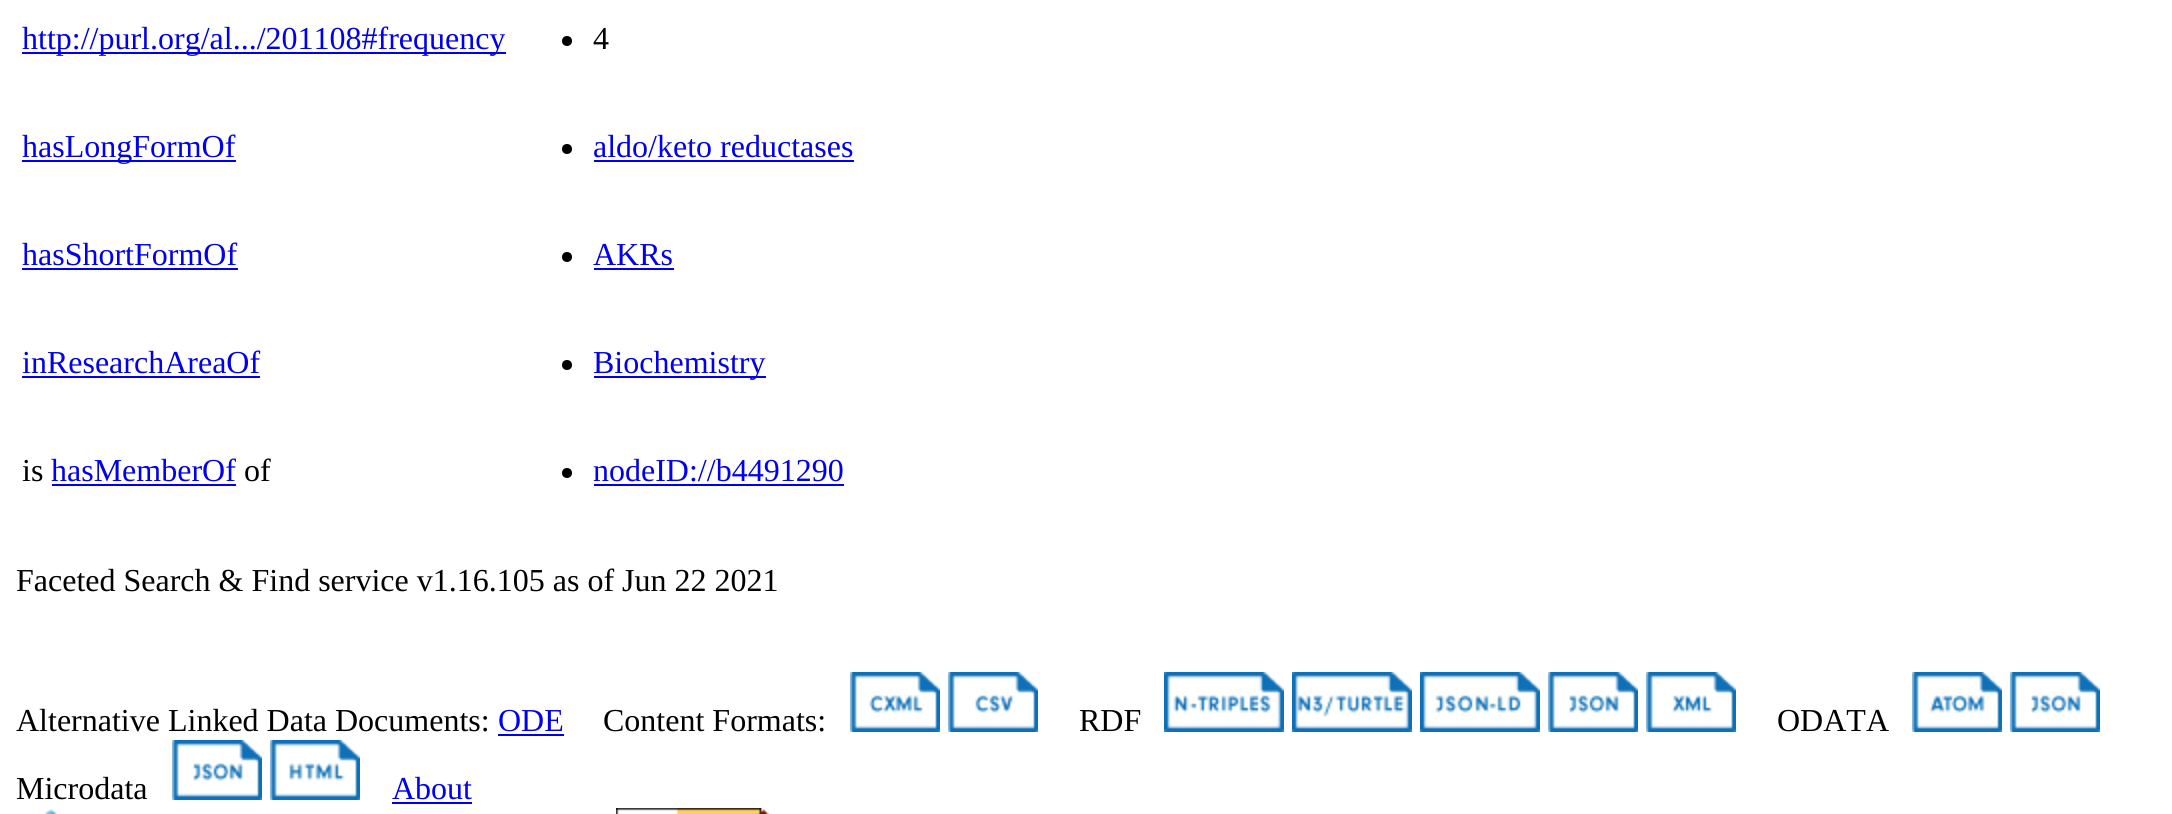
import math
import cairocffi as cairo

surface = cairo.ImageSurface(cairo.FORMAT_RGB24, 2172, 814)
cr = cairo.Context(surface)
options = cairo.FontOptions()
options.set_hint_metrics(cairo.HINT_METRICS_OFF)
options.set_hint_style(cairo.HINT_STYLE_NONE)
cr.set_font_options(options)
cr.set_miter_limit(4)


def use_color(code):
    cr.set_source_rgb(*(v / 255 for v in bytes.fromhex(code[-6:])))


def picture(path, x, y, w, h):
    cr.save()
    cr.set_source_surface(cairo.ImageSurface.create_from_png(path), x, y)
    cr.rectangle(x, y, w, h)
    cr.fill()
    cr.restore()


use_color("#ffffff")
cr.paint()
use_color("#0000ee")
cr.rectangle(22, 52, 484, 2)
cr.fill()
cr.select_font_face("Liberation Serif")
cr.set_font_size(32)
cr.move_to(22, 49)
cr.show_text("http://purl.org/al.../201108#frequency")
use_color("#000000")
cr.new_path()
cr.arc(567, 41, 5, 0, 2 * math.pi)
cr.fill()
cr.move_to(593, 49)
cr.show_text("4")
use_color("#0000ee")
cr.rectangle(22, 160, 214, 2)
cr.fill()
cr.move_to(22, 157)
cr.show_text("hasLongFormOf")
use_color("#000000")
cr.new_path()
cr.arc(567, 149, 5, 0, 2 * math.pi)
cr.fill()
use_color("#0000ee")
cr.move_to(593, 157)
cr.show_text("aldo/keto reductases")
cr.rectangle(594, 160, 260, 2)
cr.fill()
cr.move_to(22, 265)
cr.show_text("hasShortFormOf")
cr.rectangle(22, 268, 216, 2)
cr.fill()
use_color("#000000")
cr.arc(567, 257, 5, 0, 2 * math.pi)
cr.fill()
use_color("#0000ee")
cr.move_to(593, 265)
cr.show_text("AKRs")
cr.rectangle(594, 268, 80, 2)
cr.fill()
cr.move_to(22, 373)
cr.show_text("inResearchAreaOf")
cr.rectangle(22, 376, 238, 2)
cr.fill()
use_color("#000000")
cr.arc(567, 365, 5, 0, 2 * math.pi)
cr.fill()
use_color("#0000ee")
cr.rectangle(594, 376, 172, 2)
cr.fill()
cr.move_to(593, 373)
cr.show_text("Biochemistry")
use_color("#000000")
cr.move_to(22, 481)
cr.show_text("is")
use_color("#0000ee")
cr.move_to(51, 481)
cr.show_text("hasMemberOf")
cr.rectangle(52, 484, 184, 2)
cr.fill()
use_color("#000000")
cr.move_to(244, 481)
cr.show_text("of")
cr.new_path()
cr.arc(567, 473, 5, 0, 2 * math.pi)
cr.fill()
use_color("#0000ee")
cr.move_to(593, 481)
cr.show_text("nodeID://b4491290")
cr.rectangle(594, 484, 250, 2)
cr.fill()
use_color("#000000")
cr.move_to(16, 591)
cr.show_text("Faceted Search & Find service v1.16.105 as of Jun 22 2021")
cr.move_to(16, 731)
cr.show_text("Alternative Linked Data Documents:")
use_color("#0000ee")
cr.move_to(498, 731)
cr.show_text("ODE")
cr.rectangle(498, 734, 66, 2)
cr.fill()
use_color("#000000")
cr.move_to(603, 731)
cr.show_text("Content Formats:")
picture("img1.png", 850, 672, 90, 60)
picture("img2.png", 948, 672, 90, 60)
cr.move_to(1079, 731)
cr.show_text("RDF")
picture("img3.png", 1164, 672, 120, 60)
picture("img4.png", 1292, 672, 120, 60)
picture("img5.png", 1420, 672, 120, 60)
picture("img6.png", 1548, 672, 90, 60)
picture("img7.png", 1646, 672, 90, 60)
cr.move_to(1777, 731)
cr.show_text("ODATA")
picture("img8.png", 1912, 672, 90, 60)
picture("img6.png", 2010, 672, 90, 60)
cr.move_to(16, 799)
cr.show_text("Microdata")
picture("img6.png", 172, 740, 90, 60)
picture("img9.png", 270, 740, 90, 60)
use_color("#0000ee")
cr.move_to(392, 799)
cr.show_text("About")
cr.rectangle(392, 802, 80, 2)
cr.fill()
picture("img10.png", 45, 809, 13, 5)
picture("img11.png", 616, 808, 154, 6)
surface.write_to_png("result.png")
